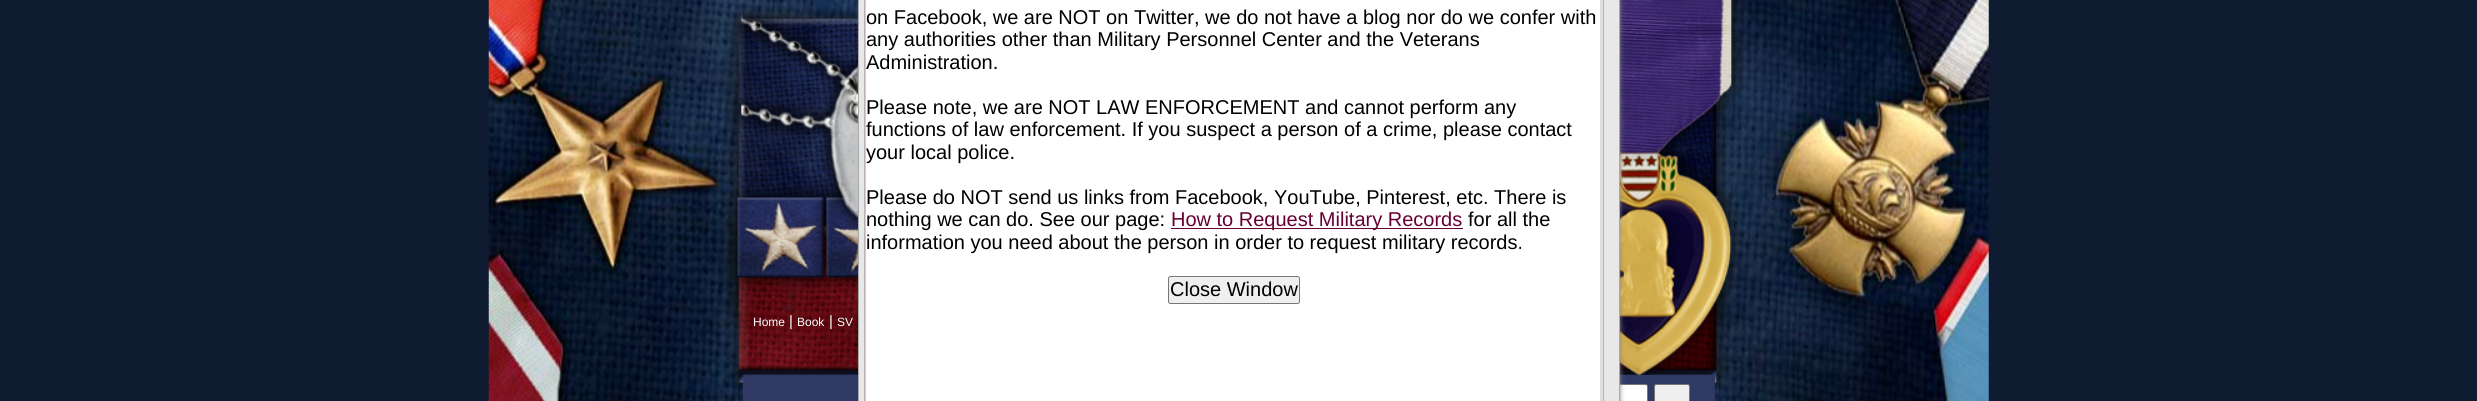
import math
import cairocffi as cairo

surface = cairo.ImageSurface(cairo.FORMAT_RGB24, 2477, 401)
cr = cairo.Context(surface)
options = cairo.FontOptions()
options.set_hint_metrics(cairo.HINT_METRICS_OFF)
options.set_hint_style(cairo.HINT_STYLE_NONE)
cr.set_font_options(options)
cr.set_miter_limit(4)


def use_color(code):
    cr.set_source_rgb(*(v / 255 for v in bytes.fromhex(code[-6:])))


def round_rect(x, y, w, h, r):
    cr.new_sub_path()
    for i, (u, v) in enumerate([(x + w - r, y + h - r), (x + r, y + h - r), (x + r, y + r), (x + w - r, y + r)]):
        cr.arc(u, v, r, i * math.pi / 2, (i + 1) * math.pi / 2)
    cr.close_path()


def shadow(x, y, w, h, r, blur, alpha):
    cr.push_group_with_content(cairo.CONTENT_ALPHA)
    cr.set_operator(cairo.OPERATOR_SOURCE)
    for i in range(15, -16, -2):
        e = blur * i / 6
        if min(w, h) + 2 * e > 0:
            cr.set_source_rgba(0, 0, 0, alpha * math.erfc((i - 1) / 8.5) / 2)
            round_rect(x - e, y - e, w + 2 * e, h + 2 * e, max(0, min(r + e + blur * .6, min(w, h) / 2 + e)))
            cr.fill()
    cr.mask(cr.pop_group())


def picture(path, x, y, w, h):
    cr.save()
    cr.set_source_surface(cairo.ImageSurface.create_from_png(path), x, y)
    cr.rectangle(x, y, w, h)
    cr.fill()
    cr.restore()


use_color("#0f1b31")
cr.paint()
picture("img1.png", 488, 0, 1501, 401)
picture("img2.png", 723, 0, 1021, 391)
use_color("#2f3963")
cr.rectangle(743, 375, 972, 26)
cr.fill()
use_color("#ffffff")
round_rect(1223.5, 384.5, 424, 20, 2)
cr.fill_preserve()
use_color("#767676")
cr.set_line_width(1)
cr.stroke()
use_color("#888888")
shadow(863, -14, 757, 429, 6, 2.5, 1)
use_color("#e8e8e8")
cr.rectangle(860, 0, 758, 401)
cr.fill()
use_color("#ebe7e7")
cr.new_path()
cr.move_to(864, -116)
cr.curve_to(861, -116, 859, -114, 859, -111)
cr.line_to(859, 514)
cr.curve_to(859, 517, 862, 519, 865, 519)
cr.curve_to(862, 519, 860, 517, 860, 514)
cr.line_to(860, -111)
cr.curve_to(860, -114, 862, -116, 865, -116)
cr.close_path()
cr.fill()
cr.new_path()
cr.move_to(1612, 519)
cr.line_to(1614, 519)
cr.curve_to(1617, 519, 1619, 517, 1619, 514)
cr.line_to(1619, -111)
cr.curve_to(1619, -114, 1617, -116, 1614, -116)
cr.line_to(1612, -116)
cr.curve_to(1615, -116, 1618, -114, 1618, -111)
cr.line_to(1618, 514)
cr.curve_to(1618, 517, 1615, 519, 1612, 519)
cr.close_path()
cr.fill()
cr.rectangle(858.5, -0.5, 761, 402)
use_color("#a9a9a9")
cr.stroke()
use_color("#e0e0e0")
cr.rectangle(1600, 0, 3, 401)
cr.fill()
cr.rectangle(864.5, -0.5, 739, 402)
use_color("#bcb1b0")
cr.stroke()
use_color("#ffffff")
cr.rectangle(866, 0, 734, 401)
cr.fill()
cr.save()
cr.rectangle(865, 0, 735, 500)
cr.clip()
cr.rectangle(865.5, -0.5, 737, 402)
use_color("#d0d0d0")
cr.stroke()
cr.restore()
cr.select_font_face("Liberation Sans")
cr.set_font_size(20)
use_color("#000000")
cr.move_to(866, 24)
cr.show_text("on Facebook, we are NOT on Twitter, we do not have a blog nor do we confer with")
cr.move_to(866, 46)
cr.show_text("any authorities other than Military Personnel Center and the Veterans")
cr.move_to(866, 69)
cr.show_text("Administration.")
cr.move_to(866, 114)
cr.show_text("Please note, we are NOT LAW ENFORCEMENT and cannot perform any")
cr.move_to(866, 136)
cr.show_text("functions of law enforcement. If you suspect a person of a crime, please contact")
cr.move_to(866, 159)
cr.show_text("your local police.")
cr.move_to(866, 204)
cr.show_text("Please do NOT send us links from Facebook, YouTube, Pinterest, etc. There is")
cr.move_to(866, 226)
cr.show_text("nothing we can do. See our page:")
use_color("#660033")
cr.rectangle(1171, 228, 292, 1)
cr.fill()
cr.move_to(1171, 226)
cr.show_text("How to Request Military Records")
use_color("#000000")
cr.move_to(1468, 226)
cr.show_text("for all the")
cr.move_to(866, 249)
cr.show_text("information you need about the person in order to request military records.")
use_color("#efefef")
round_rect(1168.5, 276.5, 131, 27, 2)
cr.fill_preserve()
use_color("#767676")
cr.stroke()
use_color("#000000")
cr.move_to(1170, 296)
cr.show_text("Close Window")
cr.set_font_size(12)
use_color("#ffffff")
cr.move_to(753, 326)
cr.show_text("Home")
cr.set_font_size(15)
cr.move_to(789, 326)
cr.show_text("|")
cr.set_font_size(12)
cr.move_to(797, 326)
cr.show_text("Book")
cr.set_font_size(15)
cr.move_to(829, 326)
cr.show_text("|")
cr.set_font_size(12)
cr.move_to(837, 326)
cr.show_text("SV")
use_color("#efefef")
round_rect(1654.5, 384.5, 35, 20, 2)
cr.fill_preserve()
use_color("#767676")
cr.stroke()
surface.write_to_png("result.png")
